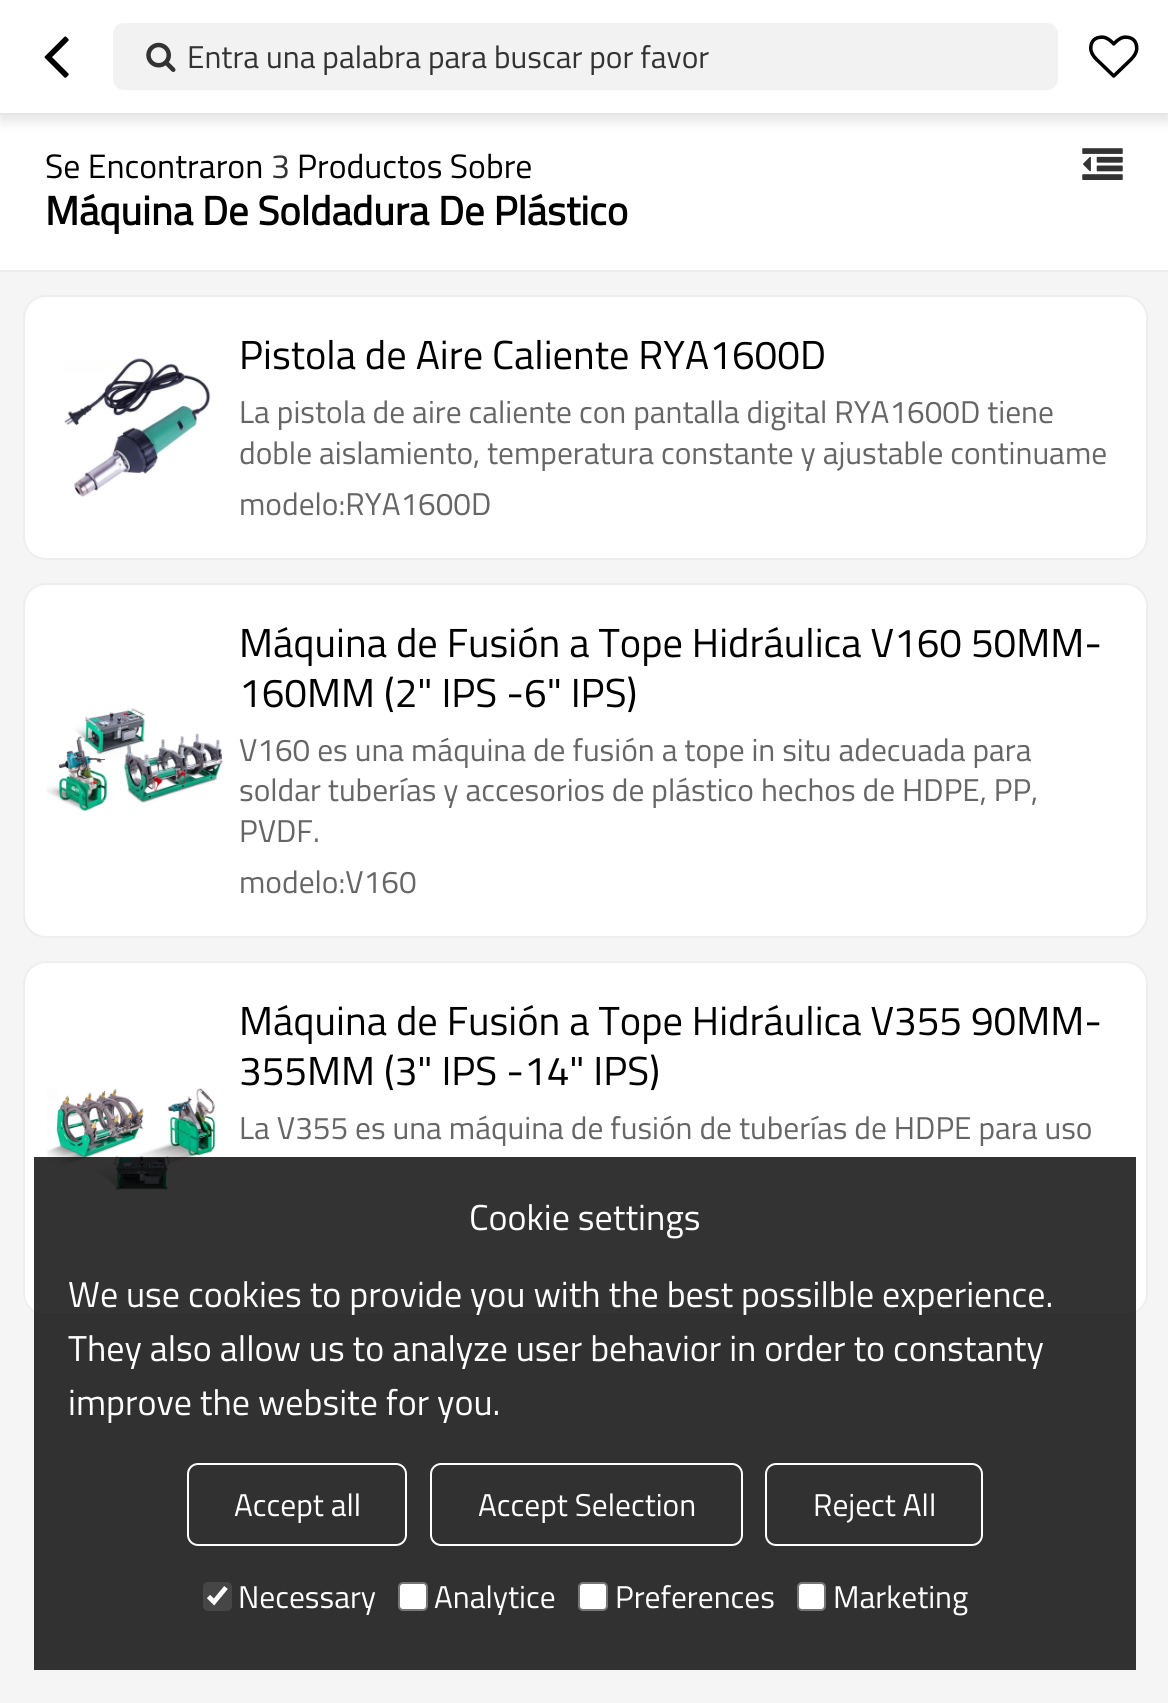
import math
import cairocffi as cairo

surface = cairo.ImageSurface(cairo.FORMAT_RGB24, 1168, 1703)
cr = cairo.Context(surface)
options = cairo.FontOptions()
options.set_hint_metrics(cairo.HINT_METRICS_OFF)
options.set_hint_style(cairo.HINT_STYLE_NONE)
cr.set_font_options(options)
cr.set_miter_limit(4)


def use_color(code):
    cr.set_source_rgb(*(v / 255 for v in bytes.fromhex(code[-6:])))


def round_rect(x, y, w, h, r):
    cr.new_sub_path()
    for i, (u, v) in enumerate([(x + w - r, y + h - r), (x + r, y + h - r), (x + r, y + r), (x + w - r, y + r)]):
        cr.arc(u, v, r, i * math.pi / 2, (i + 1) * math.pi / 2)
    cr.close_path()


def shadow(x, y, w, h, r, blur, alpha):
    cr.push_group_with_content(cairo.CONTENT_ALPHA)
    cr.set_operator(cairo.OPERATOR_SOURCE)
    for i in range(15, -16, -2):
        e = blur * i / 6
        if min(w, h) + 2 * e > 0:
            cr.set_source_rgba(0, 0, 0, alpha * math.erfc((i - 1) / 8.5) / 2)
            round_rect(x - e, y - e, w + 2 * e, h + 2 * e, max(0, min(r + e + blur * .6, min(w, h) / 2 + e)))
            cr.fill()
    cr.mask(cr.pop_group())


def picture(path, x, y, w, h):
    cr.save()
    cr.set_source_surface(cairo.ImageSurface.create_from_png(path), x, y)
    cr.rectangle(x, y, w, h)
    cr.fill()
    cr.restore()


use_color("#f5f5f5")
cr.paint()
use_color("#ffffff")
cr.rectangle(0, 115, 1168, 155)
cr.fill()
use_color("#000000")
shadow(0, 7, 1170, 115, 0, 5.5, 0.1)
use_color("#ffffff")
cr.rectangle(0, 0, 1168, 113)
cr.fill()
use_color("#e5e5e5")
cr.rectangle(0, 113, 1168, 2)
cr.fill()
picture("img1.png", 44, 36, 25, 42)
use_color("#f2f2f2")
round_rect(113, 23, 945, 67, 11)
cr.fill()
picture("img2.png", 146, 42, 30, 30)
cr.select_font_face("Titillium Web")
cr.set_font_size(31.5)
use_color("#333333")
cr.move_to(187, 68)
cr.show_text("Entra una palabra para buscar por favor")
picture("img3.png", 1089, 35, 50, 43)
use_color("#eeeeee")
cr.rectangle(0, 270, 1168, 2)
cr.fill()
cr.set_font_size(33.75)
use_color("#000000")
cr.move_to(45, 178)
cr.show_text("Se Encontraron")
use_color("#333333")
cr.move_to(271, 178)
cr.show_text("3")
use_color("#000000")
cr.move_to(297, 178)
cr.show_text("Productos Sobre")
cr.select_font_face("Titillium Web", cairo.FONT_SLANT_NORMAL, cairo.FONT_WEIGHT_BOLD)
cr.set_font_size(40.5)
cr.move_to(45, 225)
cr.show_text("Máquina De Soldadura De Plástico")
picture("img4.png", 1082, 148, 41, 32)
use_color("#ffffff")
round_rect(24, 296, 1123, 263, 22)
cr.fill_preserve()
use_color("#eeeeee")
cr.stroke()
picture("img5.png", 64, 358, 147, 139)
cr.select_font_face("Titillium Web")
use_color("#000000")
cr.move_to(239, 369)
cr.show_text("Pistola de Aire Caliente RYA1600D")
cr.set_font_size(31.5)
use_color("#666666")
cr.move_to(239, 423)
cr.show_text("La pistola de aire caliente con pantalla digital RYA1600D tiene")
cr.move_to(239, 464)
cr.show_text("doble aislamiento, temperatura constante y ajustable continuame")
cr.move_to(239, 515)
cr.show_text("modelo:RYA1600D")
use_color("#ffffff")
round_rect(24, 584, 1123, 353, 22)
cr.fill_preserve()
use_color("#eeeeee")
cr.stroke()
picture("img6.png", 47, 708, 177, 104)
cr.set_font_size(40.5)
use_color("#000000")
cr.move_to(239, 657)
cr.show_text("Máquina de Fusión a Tope Hidráulica V160 50MM-")
cr.move_to(239, 707)
cr.show_text("160MM (2\" IPS -6\" IPS)")
cr.set_font_size(31.5)
use_color("#666666")
cr.move_to(239, 761)
cr.show_text("V160 es una máquina de fusión a tope in situ adecuada para")
cr.move_to(239, 801)
cr.show_text("soldar tuberías y accesorios de plástico hechos de HDPE, PP,")
cr.move_to(239, 842)
cr.show_text("PVDF.")
cr.move_to(239, 893)
cr.show_text("modelo:V160")
use_color("#ffffff")
round_rect(24, 962, 1123, 353, 22)
cr.fill_preserve()
use_color("#eeeeee")
cr.stroke()
picture("img7.png", 47, 1088, 169, 103)
cr.set_font_size(40.5)
use_color("#000000")
cr.move_to(239, 1035)
cr.show_text("Máquina de Fusión a Tope Hidráulica V355 90MM-")
cr.move_to(239, 1085)
cr.show_text("355MM (3\" IPS -14\" IPS)")
cr.set_font_size(31.5)
use_color("#666666")
cr.move_to(239, 1139)
cr.show_text("La V355 es una máquina de fusión de tuberías de HDPE para uso")
cr.set_source_rgba(0, 0, 0, 0.8)
cr.rectangle(34, 1157, 1102, 513)
cr.fill()
cr.set_font_size(36)
use_color("#ffffff")
cr.move_to(469, 1230)
cr.show_text("Cookie settings")
cr.move_to(68, 1307)
cr.show_text("We use cookies to provide you with the best possilble experience.")
cr.move_to(68, 1361)
cr.show_text("They also allow us to analyze user behavior in order to constanty")
cr.move_to(68, 1415)
cr.show_text("improve the website for you.")
round_rect(188, 1464, 218, 81, 10)
cr.stroke()
cr.set_font_size(31.5)
cr.move_to(234, 1516)
cr.show_text("Accept all")
round_rect(431, 1464, 311, 81, 10)
cr.stroke()
cr.move_to(478, 1516)
cr.show_text("Accept Selection")
round_rect(766, 1464, 216, 81, 10)
cr.stroke()
cr.move_to(813, 1516)
cr.show_text("Reject All")
use_color("#464646")
round_rect(203, 1582, 29, 29, 5)
cr.fill()
cr.new_path()
cr.move_to(208.5, 1596.5)
cr.line_to(214, 1602)
cr.line_to(226, 1587.5)
use_color("#ffffff")
cr.set_line_width(4.7)
cr.stroke()
cr.move_to(238, 1608)
cr.show_text("Necessary")
round_rect(399, 1583, 28, 27, 4)
cr.fill_preserve()
use_color("#767676")
cr.set_line_width(2)
cr.stroke()
use_color("#ffffff")
cr.move_to(434, 1608)
cr.show_text("Analytice")
round_rect(579, 1583, 28, 27, 4)
cr.fill_preserve()
use_color("#767676")
cr.stroke()
use_color("#ffffff")
cr.move_to(615, 1608)
cr.show_text("Preferences")
round_rect(798, 1583, 27, 27, 4)
cr.fill_preserve()
use_color("#767676")
cr.stroke()
use_color("#ffffff")
cr.move_to(833, 1608)
cr.show_text("Marketing")
surface.write_to_png("result.png")
